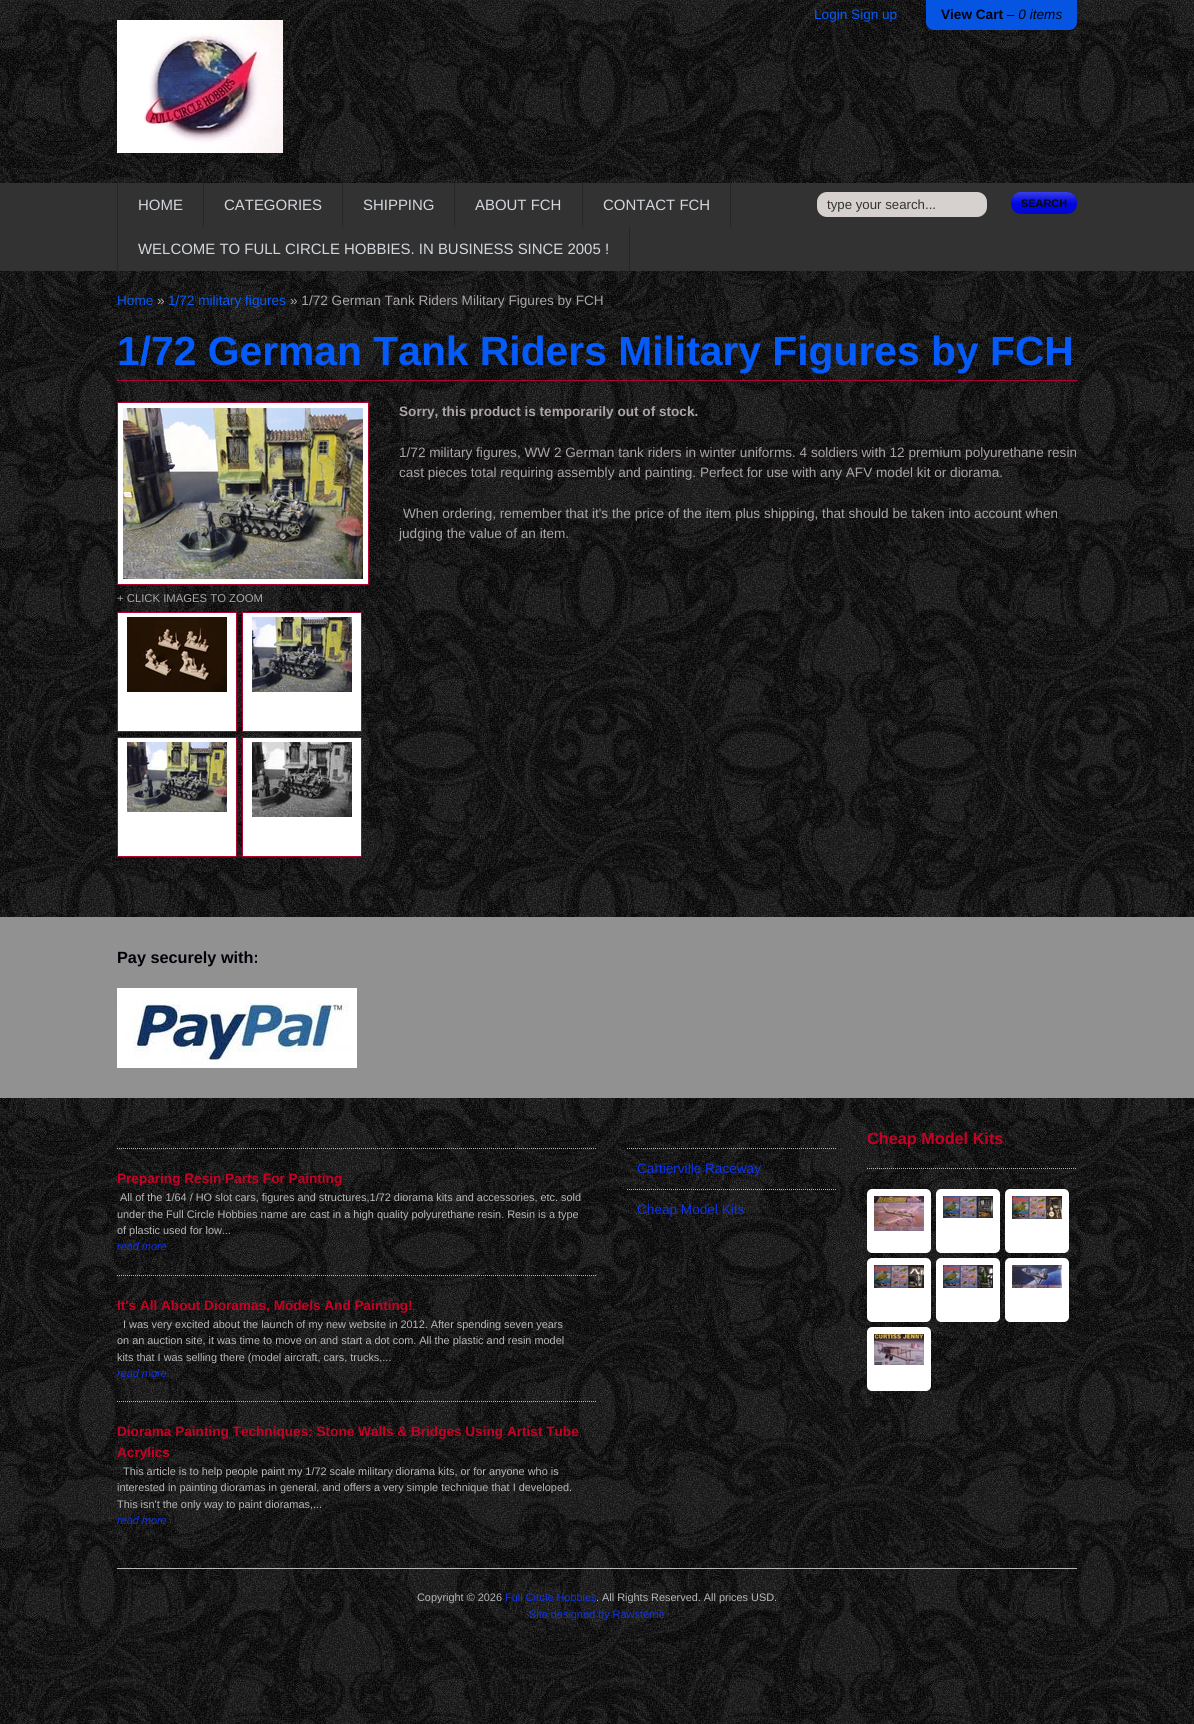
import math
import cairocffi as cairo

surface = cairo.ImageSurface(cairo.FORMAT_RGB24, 1194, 1724)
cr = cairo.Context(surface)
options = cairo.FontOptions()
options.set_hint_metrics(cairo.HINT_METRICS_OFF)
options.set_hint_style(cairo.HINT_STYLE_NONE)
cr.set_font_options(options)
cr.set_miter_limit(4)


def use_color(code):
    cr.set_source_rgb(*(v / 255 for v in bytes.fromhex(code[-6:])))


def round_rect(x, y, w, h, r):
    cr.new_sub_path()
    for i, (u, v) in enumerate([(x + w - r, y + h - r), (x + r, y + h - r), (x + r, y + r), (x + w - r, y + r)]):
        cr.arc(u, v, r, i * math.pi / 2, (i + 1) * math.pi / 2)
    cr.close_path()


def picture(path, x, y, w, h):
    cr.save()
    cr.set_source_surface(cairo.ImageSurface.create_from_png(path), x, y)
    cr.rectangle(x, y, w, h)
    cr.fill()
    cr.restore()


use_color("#ffffff")
cr.paint()
picture("img1.png", 0, 0, 1194, 1724)
cr.select_font_face("Liberation Sans")
cr.set_font_size(13.6)
use_color("#055bf9")
cr.move_to(814, 19)
cr.show_text("Login Sign up")
use_color("#0654e2")
cr.new_path()
cr.move_to(926, 0)
cr.line_to(1077, 0)
cr.line_to(1077, 22)
cr.curve_to(1077, 26.5, 1073.5, 30, 1069, 30)
cr.line_to(934, 30)
cr.curve_to(929.5, 30, 926, 26.5, 926, 22)
cr.close_path()
cr.fill()
cr.select_font_face("Liberation Sans", cairo.FONT_SLANT_NORMAL, cairo.FONT_WEIGHT_BOLD)
use_color("#000108")
cr.move_to(941, 19)
cr.show_text("View Cart")
cr.select_font_face("Liberation Sans", cairo.FONT_SLANT_ITALIC)
cr.move_to(1007, 19)
cr.show_text("– 0 items")
picture("img2.png", 117, 20, 166, 133)
use_color("#323232")
cr.rectangle(0, 183, 1194, 88)
cr.fill()
use_color("#262626")
cr.rectangle(117, 183, 1, 88)
cr.fill()
cr.rectangle(203, 183, 1, 44)
cr.fill()
cr.select_font_face("Liberation Sans")
cr.set_font_size(14.95)
use_color("#d3d7dc")
cr.move_to(138, 210)
cr.show_text("HOME")
use_color("#262626")
cr.rectangle(342, 183, 1, 44)
cr.fill()
use_color("#d3d7dc")
cr.move_to(224, 210)
cr.show_text("CATEGORIES")
use_color("#262626")
cr.rectangle(454, 183, 1, 44)
cr.fill()
use_color("#d3d7dc")
cr.move_to(363, 210)
cr.show_text("SHIPPING")
use_color("#262626")
cr.rectangle(582, 183, 1, 44)
cr.fill()
use_color("#d3d7dc")
cr.move_to(475, 210)
cr.show_text("ABOUT FCH")
use_color("#262626")
cr.rectangle(730, 183, 1, 44)
cr.fill()
use_color("#d3d7dc")
cr.move_to(603, 210)
cr.show_text("CONTACT FCH")
use_color("#262626")
cr.rectangle(629, 227, 1, 44)
cr.fill()
use_color("#d3d7dc")
cr.move_to(138, 254)
cr.show_text("WELCOME TO FULL CIRCLE HOBBIES. IN BUSINESS SINCE 2005 !")
use_color("#d6d0cf")
round_rect(817, 192, 170, 25, 10)
cr.fill()
cr.set_font_size(13.25)
use_color("#333333")
cr.move_to(827, 209)
cr.show_text("type your search...")
use_color("#0006e0")
round_rect(1011, 192, 66, 22, 10)
cr.fill()
picture("img3.png", 1011, 192, 66, 22)
cr.select_font_face("Liberation Sans", cairo.FONT_SLANT_NORMAL, cairo.FONT_WEIGHT_BOLD)
cr.set_font_size(10.9)
use_color("#080808")
cr.move_to(1021, 207)
cr.show_text("SEARCH")
cr.select_font_face("Liberation Sans")
cr.set_font_size(13.6)
use_color("#055bf9")
cr.move_to(117, 305)
cr.show_text("Home")
use_color("#aba6a5")
cr.move_to(157, 305)
cr.show_text("»")
use_color("#055bf9")
cr.move_to(168, 305)
cr.show_text("1/72 military figures")
use_color("#aba6a5")
cr.move_to(290, 305)
cr.show_text("» 1/72 German Tank Riders Military Figures by FCH")
use_color("#af0433")
cr.rectangle(117, 380, 960, 1)
cr.fill()
cr.select_font_face("Liberation Sans", cairo.FONT_SLANT_NORMAL, cairo.FONT_WEIGHT_BOLD)
cr.set_font_size(40.8)
use_color("#055bf9")
cr.move_to(117, 365)
cr.show_text("1/72 German Tank Riders Military Figures by FCH")
cr.set_font_size(13.6)
use_color("#aba6a5")
cr.move_to(399, 416)
cr.show_text("Sorry, this product is temporarily out of stock.")
cr.select_font_face("Liberation Sans")
cr.move_to(399, 457)
cr.show_text("1/72 military figures, WW 2 German tank riders in winter uniforms. 4 soldiers with 12 premium polyurethane resin")
cr.move_to(399, 477)
cr.show_text("cast pieces total requiring assembly and painting. Perfect for use with any AFV model kit or diorama.")
cr.move_to(403, 518)
cr.show_text("When ordering, remember that it's the price of the item plus shipping, that should be taken into account when")
cr.move_to(399, 538)
cr.show_text("judging the value of an item.")
use_color("#ffffff")
cr.rectangle(117.5, 402.5, 251, 182)
cr.fill_preserve()
use_color("#af0433")
cr.set_line_width(1)
cr.stroke()
picture("img4.png", 123, 408, 240, 171)
cr.set_font_size(11.3)
use_color("#aba6a5")
cr.move_to(117, 602)
cr.show_text("+ CLICK IMAGES TO ZOOM")
use_color("#ffffff")
cr.rectangle(117.5, 612.5, 119, 119)
cr.fill_preserve()
use_color("#af0433")
cr.stroke()
picture("img5.png", 127, 617, 100, 75)
use_color("#ffffff")
cr.rectangle(242.5, 612.5, 119, 119)
cr.fill_preserve()
use_color("#af0433")
cr.stroke()
picture("img6.png", 252, 617, 100, 75)
use_color("#ffffff")
cr.rectangle(117.5, 737.5, 119, 119)
cr.fill_preserve()
use_color("#af0433")
cr.stroke()
picture("img7.png", 127, 742, 100, 70)
use_color("#ffffff")
cr.rectangle(242.5, 737.5, 119, 119)
cr.fill_preserve()
use_color("#af0433")
cr.stroke()
picture("img8.png", 252, 742, 100, 75)
use_color("#919191")
cr.rectangle(0, 917, 1194, 181)
cr.fill()
cr.select_font_face("Liberation Sans", cairo.FONT_SLANT_NORMAL, cairo.FONT_WEIGHT_BOLD)
cr.set_font_size(16.25)
use_color("#000108")
cr.move_to(117, 963)
cr.show_text("Pay securely with:")
picture("img9.png", 117, 988, 240, 80)
cr.new_path()
cr.move_to(117, 1148.5)
cr.line_to(597, 1148.5)
use_color("#b8b8b8")
cr.set_dash([1, 1])
cr.stroke()
cr.set_font_size(13.6)
use_color("#c80024")
cr.move_to(117, 1183)
cr.show_text("Preparing Resin Parts For Painting")
cr.select_font_face("Liberation Sans")
cr.set_font_size(10.9)
use_color("#b8b8b8")
cr.move_to(120, 1201)
cr.show_text("All of the 1/64 / HO slot cars, figures and structures,1/72 diorama kits and accessories, etc. sold")
cr.move_to(117, 1218)
cr.show_text("under the Full Circle Hobbies name are cast in a high quality polyurethane resin. Resin is a type")
cr.move_to(117, 1234)
cr.show_text("of plastic used for low...")
cr.select_font_face("Liberation Sans", cairo.FONT_SLANT_ITALIC)
use_color("#0c32ee")
cr.move_to(117, 1250)
cr.show_text("read more")
cr.new_path()
cr.move_to(117, 1275.5)
cr.line_to(597, 1275.5)
use_color("#b8b8b8")
cr.stroke()
cr.select_font_face("Liberation Sans", cairo.FONT_SLANT_NORMAL, cairo.FONT_WEIGHT_BOLD)
cr.set_font_size(13.6)
use_color("#c80024")
cr.move_to(117, 1310)
cr.show_text("It's All About Dioramas, Models And Painting!")
cr.select_font_face("Liberation Sans")
cr.set_font_size(10.9)
use_color("#b8b8b8")
cr.move_to(123, 1328)
cr.show_text("I was very excited about the launch of my new website in 2012. After spending seven years")
cr.move_to(117, 1344)
cr.show_text("on an auction site, it was time to move on and start a dot com. All the plastic and resin model")
cr.move_to(117, 1361)
cr.show_text("kits that I was selling there (model aircraft, cars, trucks,...")
cr.select_font_face("Liberation Sans", cairo.FONT_SLANT_ITALIC)
use_color("#0c32ee")
cr.move_to(117, 1377)
cr.show_text("read more")
cr.new_path()
cr.move_to(117, 1401.5)
cr.line_to(597, 1401.5)
use_color("#b8b8b8")
cr.stroke()
cr.select_font_face("Liberation Sans", cairo.FONT_SLANT_NORMAL, cairo.FONT_WEIGHT_BOLD)
cr.set_font_size(13.6)
use_color("#c80024")
cr.move_to(117, 1436)
cr.show_text("Diorama Painting Techniques: Stone Walls & Bridges Using Artist Tube")
cr.move_to(117, 1457)
cr.show_text("Acrylics")
cr.select_font_face("Liberation Sans")
cr.set_font_size(10.9)
use_color("#b8b8b8")
cr.move_to(123, 1475)
cr.show_text("This article is to help people paint my 1/72 scale military diorama kits, or for anyone who is")
cr.move_to(117, 1491)
cr.show_text("interested in painting dioramas in general, and offers a very simple technique that I developed.")
cr.move_to(117, 1508)
cr.show_text("This isn't the only way to paint dioramas,...")
cr.select_font_face("Liberation Sans", cairo.FONT_SLANT_ITALIC)
use_color("#0c32ee")
cr.move_to(117, 1524)
cr.show_text("read more")
cr.new_path()
cr.move_to(867, 1168.5)
cr.line_to(1077, 1168.5)
use_color("#b8b8b8")
cr.stroke()
cr.select_font_face("Liberation Sans", cairo.FONT_SLANT_NORMAL, cairo.FONT_WEIGHT_BOLD)
cr.set_font_size(16.25)
use_color("#c80024")
cr.move_to(867, 1144)
cr.show_text("Cheap Model Kits")
use_color("#ffffff")
round_rect(868, 1190, 62, 62, 4)
cr.fill_preserve()
cr.set_line_width(2)
cr.set_dash([])
cr.stroke()
picture("img10.png", 874, 1196, 50, 35)
round_rect(937, 1190, 62, 62, 4)
cr.fill_preserve()
cr.stroke()
picture("img11.png", 943, 1196, 50, 22)
round_rect(1006, 1190, 62, 62, 4)
cr.fill_preserve()
cr.stroke()
picture("img12.png", 1012, 1196, 50, 23)
round_rect(868, 1259, 62, 62, 4)
cr.fill_preserve()
cr.stroke()
picture("img13.png", 874, 1265, 50, 23)
round_rect(937, 1259, 62, 62, 4)
cr.fill_preserve()
cr.stroke()
picture("img14.png", 943, 1265, 50, 23)
round_rect(1006, 1259, 62, 62, 4)
cr.fill_preserve()
cr.stroke()
picture("img15.png", 1012, 1265, 50, 23)
round_rect(868, 1328, 62, 62, 4)
cr.fill_preserve()
cr.stroke()
picture("img16.png", 874, 1334, 50, 31)
cr.new_path()
cr.move_to(627, 1148.5)
cr.line_to(837, 1148.5)
use_color("#b8b8b8")
cr.set_line_width(1)
cr.set_dash([1, 1])
cr.stroke()
cr.select_font_face("Liberation Sans")
cr.set_font_size(13.6)
use_color("#0c32ee")
cr.move_to(637, 1173)
cr.show_text("Cartierville Raceway")
cr.new_path()
cr.move_to(627, 1189.5)
cr.line_to(837, 1189.5)
use_color("#b8b8b8")
cr.stroke()
use_color("#0c32ee")
cr.move_to(637, 1214)
cr.show_text("Cheap Model Kits")
use_color("#b8b8b8")
cr.rectangle(117, 1568, 960, 1)
cr.fill()
cr.set_font_size(10.9)
cr.move_to(417, 1601)
cr.show_text("Copyright © 2026")
use_color("#0c32ee")
cr.move_to(505, 1601)
cr.show_text("Full Circle Hobbies")
use_color("#b8b8b8")
cr.move_to(596, 1601)
cr.show_text(". All Rights Reserved. All prices USD.")
use_color("#0c32ee")
cr.move_to(529, 1618)
cr.show_text("Site designed by Rawsterne")
surface.write_to_png("result.png")
